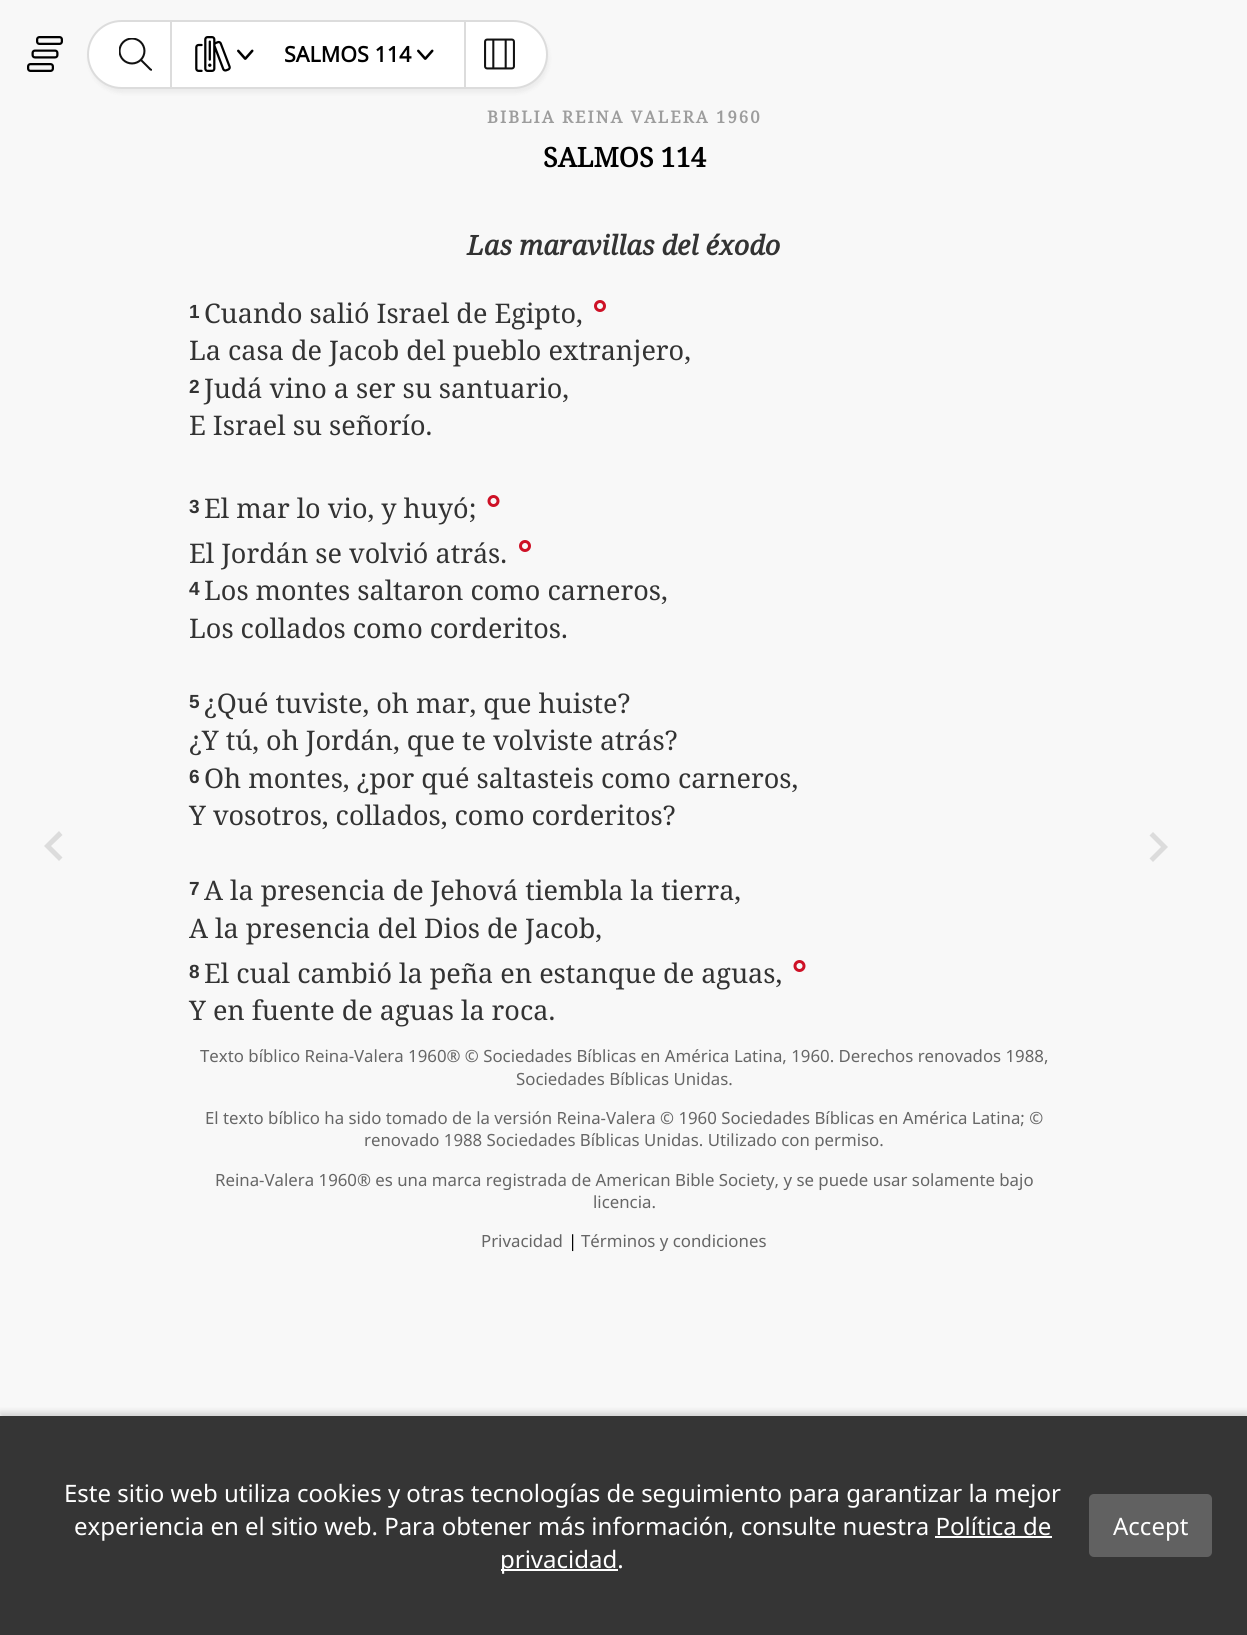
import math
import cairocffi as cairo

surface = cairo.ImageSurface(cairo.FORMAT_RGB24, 1247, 1635)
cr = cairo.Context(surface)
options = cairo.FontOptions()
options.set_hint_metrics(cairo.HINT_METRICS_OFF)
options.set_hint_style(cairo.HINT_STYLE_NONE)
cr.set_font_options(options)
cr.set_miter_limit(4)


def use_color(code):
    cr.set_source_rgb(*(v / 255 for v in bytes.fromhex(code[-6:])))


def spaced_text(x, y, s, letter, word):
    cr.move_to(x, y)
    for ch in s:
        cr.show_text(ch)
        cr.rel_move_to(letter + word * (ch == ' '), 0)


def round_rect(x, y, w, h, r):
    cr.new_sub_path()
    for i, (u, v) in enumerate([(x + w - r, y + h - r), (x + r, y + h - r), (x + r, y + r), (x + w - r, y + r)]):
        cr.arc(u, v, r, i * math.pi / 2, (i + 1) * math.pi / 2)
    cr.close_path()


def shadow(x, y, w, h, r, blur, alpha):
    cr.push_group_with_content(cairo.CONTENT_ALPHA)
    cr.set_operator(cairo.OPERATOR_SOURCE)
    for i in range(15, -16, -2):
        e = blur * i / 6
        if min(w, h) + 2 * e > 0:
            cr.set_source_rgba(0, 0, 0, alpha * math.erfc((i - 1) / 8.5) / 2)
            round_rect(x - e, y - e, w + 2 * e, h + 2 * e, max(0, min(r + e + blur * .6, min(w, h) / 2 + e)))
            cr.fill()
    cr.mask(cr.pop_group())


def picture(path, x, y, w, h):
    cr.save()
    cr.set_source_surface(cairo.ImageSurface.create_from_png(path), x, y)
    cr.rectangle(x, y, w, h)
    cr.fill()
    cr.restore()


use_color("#f8f8f8")
cr.paint()
picture("img1.png", 27, 36, 36, 36)
use_color("#000000")
shadow(89, 24, 460, 69, 34.5, 2, 0.05)
use_color("#ffffff")
round_rect(88, 21, 459, 67, 33.5)
cr.fill_preserve()
use_color("#dcdcdc")
cr.stroke()
cr.rectangle(170, 21, 2, 66)
cr.fill()
picture("img2.png", 119, 38, 33, 33)
picture("img3.png", 195, 36, 36, 36)
picture("img4.png", 237, 49, 17, 11)
cr.select_font_face("Noto Sans", cairo.FONT_SLANT_NORMAL, cairo.FONT_WEIGHT_BOLD)
cr.set_font_size(21.5)
use_color("#000000")
cr.move_to(284, 62)
cr.show_text("SALMOS 114")
picture("img4.png", 417, 49, 17, 11)
use_color("#dcdcdc")
cr.rectangle(464, 21, 2, 66)
cr.fill()
picture("img5.png", 484, 38, 31, 32)
cr.new_path()
cr.move_to(62.5, 857.5)
cr.line_to(51, 846)
cr.line_to(62.5, 835)
cr.line_to(59, 831)
cr.line_to(44, 846)
cr.line_to(59, 861)
cr.close_path()
cr.fill()
cr.select_font_face("Noto Serif", cairo.FONT_SLANT_NORMAL, cairo.FONT_WEIGHT_BOLD)
cr.set_font_size(16.8)
use_color("#9d9d9d")
spaced_text(487, 123, "BIBLIA REINA VALERA 1960", 2, 0)
cr.set_font_size(27)
use_color("#000000")
cr.move_to(543, 167)
cr.show_text("SALMOS 114")
cr.select_font_face("Noto Serif", cairo.FONT_SLANT_ITALIC, cairo.FONT_WEIGHT_BOLD)
use_color("#333333")
cr.move_to(467, 255)
cr.show_text("Las maravillas del éxodo")
cr.select_font_face("Liberation Sans", cairo.FONT_SLANT_NORMAL, cairo.FONT_WEIGHT_BOLD)
cr.set_font_size(19)
spaced_text(189, 318, "1", -1, 0)
cr.select_font_face("Noto Serif")
cr.set_font_size(27)
cr.move_to(204, 323)
cr.show_text("Cuando salió Israel de Egipto,")
picture("img6.png", 594, 300, 12, 12)
cr.move_to(189, 360)
cr.show_text("La casa de Jacob del pueblo extranjero,")
cr.select_font_face("Liberation Sans", cairo.FONT_SLANT_NORMAL, cairo.FONT_WEIGHT_BOLD)
cr.set_font_size(19)
spaced_text(189, 393, "2", -1, 0)
cr.select_font_face("Noto Serif")
cr.set_font_size(27)
cr.move_to(204, 398)
cr.show_text("Judá vino a ser su santuario,")
cr.move_to(189, 435)
cr.show_text("E Israel su señorío.")
cr.select_font_face("Liberation Sans", cairo.FONT_SLANT_NORMAL, cairo.FONT_WEIGHT_BOLD)
cr.set_font_size(19)
spaced_text(189, 513, "3", -1, 0)
cr.select_font_face("Noto Serif")
cr.set_font_size(27)
cr.move_to(204, 518)
cr.show_text("El mar lo vio, y huyó;")
picture("img7.png", 487, 495, 13, 12)
cr.move_to(189, 563)
cr.show_text("El Jordán se volvió atrás.")
picture("img6.png", 519, 540, 12, 12)
cr.select_font_face("Liberation Sans", cairo.FONT_SLANT_NORMAL, cairo.FONT_WEIGHT_BOLD)
cr.set_font_size(19)
spaced_text(189, 595, "4", -1, 0)
cr.select_font_face("Noto Serif")
cr.set_font_size(27)
cr.move_to(204, 600)
cr.show_text("Los montes saltaron como carneros,")
cr.move_to(189, 638)
cr.show_text("Los collados como corderitos.")
cr.select_font_face("Liberation Sans", cairo.FONT_SLANT_NORMAL, cairo.FONT_WEIGHT_BOLD)
cr.set_font_size(19)
spaced_text(189, 708, "5", -1, 0)
cr.select_font_face("Noto Serif")
cr.set_font_size(27)
cr.move_to(204, 713)
cr.show_text("¿Qué tuviste, oh mar, que huiste?")
cr.move_to(189, 750)
cr.show_text("¿Y tú, oh Jordán, que te volviste atrás?")
cr.select_font_face("Liberation Sans", cairo.FONT_SLANT_NORMAL, cairo.FONT_WEIGHT_BOLD)
cr.set_font_size(19)
spaced_text(189, 783, "6", -1, 0)
cr.select_font_face("Noto Serif")
cr.set_font_size(27)
cr.move_to(204, 788)
cr.show_text("Oh montes, ¿por qué saltasteis como carneros,")
cr.move_to(189, 825)
cr.show_text("Y vosotros, collados, como corderitos?")
cr.select_font_face("Liberation Sans", cairo.FONT_SLANT_NORMAL, cairo.FONT_WEIGHT_BOLD)
cr.set_font_size(19)
spaced_text(189, 895, "7", -1, 0)
cr.select_font_face("Noto Serif")
cr.set_font_size(27)
cr.move_to(204, 900)
cr.show_text("A la presencia de Jehová tiembla la tierra,")
cr.move_to(189, 938)
cr.show_text("A la presencia del Dios de Jacob,")
cr.select_font_face("Liberation Sans", cairo.FONT_SLANT_NORMAL, cairo.FONT_WEIGHT_BOLD)
cr.set_font_size(19)
spaced_text(189, 978, "8", -1, 0)
cr.select_font_face("Noto Serif")
cr.set_font_size(27)
cr.move_to(204, 983)
cr.show_text("El cual cambió la peña en estanque de aguas,")
picture("img7.png", 793, 960, 13, 12)
cr.move_to(189, 1020)
cr.show_text("Y en fuente de aguas la roca.")
cr.select_font_face("Noto Sans")
cr.set_font_size(16.8)
use_color("#666666")
cr.move_to(200, 1062)
cr.show_text("Texto bíblico Reina-Valera 1960® © Sociedades Bíblicas en América Latina, 1960. Derechos renovados 1988,")
cr.move_to(516, 1085)
cr.show_text("Sociedades Bíblicas Unidas.")
cr.move_to(205, 1124)
cr.show_text("El texto bíblico ha sido tomado de la versión Reina-Valera © 1960 Sociedades Bíblicas en América Latina; ©")
cr.move_to(364, 1146)
cr.show_text("renovado 1988 Sociedades Bíblicas Unidas. Utilizado con permiso.")
cr.move_to(215, 1186)
cr.show_text("Reina-Valera 1960® es una marca registrada de American Bible Society, y se puede usar solamente bajo")
cr.move_to(593, 1208)
cr.show_text("licencia.")
cr.move_to(481, 1247)
cr.show_text("Privacidad")
use_color("#000000")
cr.move_to(568, 1247)
cr.show_text("|")
use_color("#666666")
cr.move_to(581, 1247)
cr.show_text("Términos y condiciones")
use_color("#dcdcdc")
cr.new_path()
cr.move_to(1149.5, 858.5)
cr.line_to(1161, 847)
cr.line_to(1149.5, 835.5)
cr.line_to(1153, 832)
cr.line_to(1168, 847)
cr.line_to(1153, 862)
cr.close_path()
cr.fill()
use_color("#000000")
shadow(0, 1412, 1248, 219, 0, 3, 0.15)
use_color("#353535")
cr.rectangle(0, 1416, 1247, 219)
cr.fill()
cr.set_font_size(24)
use_color("#ffffff")
cr.move_to(64, 1502)
cr.show_text("Este sitio web utiliza cookies y otras tecnologías de seguimiento para garantizar la mejor")
cr.move_to(74, 1535)
cr.show_text("experiencia en el sitio web. Para obtener más información, consulte nuestra Política de")
cr.rectangle(501, 1569, 117, 2)
cr.fill()
cr.move_to(500, 1568)
cr.show_text("privacidad.")
cr.rectangle(935, 1536, 117, 2)
cr.fill()
use_color("#616161")
round_rect(1089, 1494, 123, 63, 5)
cr.fill()
use_color("#ffffff")
cr.move_to(1113, 1535)
cr.show_text("Accept")
surface.write_to_png("result.png")
